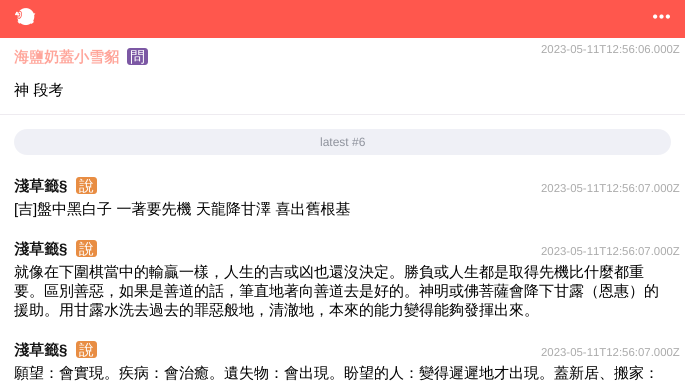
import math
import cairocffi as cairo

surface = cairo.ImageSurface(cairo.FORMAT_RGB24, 685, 388)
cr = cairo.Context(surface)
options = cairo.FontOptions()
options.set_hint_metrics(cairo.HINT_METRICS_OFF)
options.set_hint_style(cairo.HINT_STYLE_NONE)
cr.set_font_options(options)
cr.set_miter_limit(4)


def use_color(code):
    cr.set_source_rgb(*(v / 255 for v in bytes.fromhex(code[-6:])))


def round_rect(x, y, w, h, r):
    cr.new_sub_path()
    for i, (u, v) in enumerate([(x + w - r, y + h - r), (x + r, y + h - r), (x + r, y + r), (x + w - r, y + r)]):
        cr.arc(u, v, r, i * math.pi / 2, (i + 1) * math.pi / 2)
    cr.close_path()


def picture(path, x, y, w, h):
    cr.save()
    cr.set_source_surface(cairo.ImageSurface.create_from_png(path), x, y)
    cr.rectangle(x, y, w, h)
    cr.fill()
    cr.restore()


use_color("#ffffff")
cr.paint()
use_color("#ff574d")
cr.rectangle(0, 0, 685, 38)
cr.fill()
picture("img1.png", 15, 8, 21, 18)
picture("img2.png", 653, 14, 17, 5)
use_color("#eeebf0")
cr.rectangle(0, 114, 685, 1)
cr.fill()
cr.select_font_face("WenQuanYi Zen Hei", cairo.FONT_SLANT_NORMAL, cairo.FONT_WEIGHT_BOLD)
cr.set_font_size(15)
use_color("#ffa59a")
cr.move_to(14, 62)
cr.show_text("海鹽奶蓋小雪貂")
use_color("#7c58a4")
round_rect(127, 48, 21, 17, 3)
cr.fill()
cr.select_font_face("WenQuanYi Zen Hei Medium")
use_color("#ffffff")
cr.move_to(130, 62)
cr.show_text("問")
cr.select_font_face("Liberation Sans")
cr.set_font_size(11.4)
use_color("#aaaaaa")
cr.move_to(541, 53)
cr.show_text("2023-05-11T12:56:06.000Z")
cr.select_font_face("WenQuanYi Zen Hei Medium")
cr.set_font_size(15)
use_color("#000000")
cr.move_to(14, 95)
cr.show_text("神 段考")
use_color("#eff0f6")
round_rect(14, 129, 657, 26, 13)
cr.fill()
cr.select_font_face("Liberation Sans")
cr.set_font_size(12)
use_color("#8e929c")
cr.move_to(320, 146)
cr.show_text("latest #6")
cr.select_font_face("WenQuanYi Zen Hei", cairo.FONT_SLANT_NORMAL, cairo.FONT_WEIGHT_BOLD)
cr.set_font_size(15)
use_color("#111111")
cr.move_to(14, 191)
cr.show_text("淺草籤")
cr.select_font_face("Liberation Sans", cairo.FONT_SLANT_NORMAL, cairo.FONT_WEIGHT_BOLD)
cr.move_to(59, 191)
cr.show_text("§")
use_color("#e88d43")
round_rect(76, 177, 21, 17, 3)
cr.fill()
cr.select_font_face("WenQuanYi Zen Hei Medium")
use_color("#ffffff")
cr.move_to(79, 191)
cr.show_text("說")
cr.select_font_face("Liberation Sans")
cr.set_font_size(11.4)
use_color("#aaaaaa")
cr.move_to(541, 192)
cr.show_text("2023-05-11T12:56:07.000Z")
cr.set_font_size(15)
use_color("#000000")
cr.move_to(14, 214)
cr.show_text("[")
cr.select_font_face("WenQuanYi Zen Hei Medium")
cr.move_to(18, 214)
cr.show_text("吉")
cr.select_font_face("Liberation Sans")
cr.move_to(33, 214)
cr.show_text("]")
cr.select_font_face("WenQuanYi Zen Hei Medium")
cr.move_to(37, 214)
cr.show_text("盤中黑白子 一著要先機 天龍降甘澤 喜出舊根基")
cr.select_font_face("WenQuanYi Zen Hei", cairo.FONT_SLANT_NORMAL, cairo.FONT_WEIGHT_BOLD)
use_color("#111111")
cr.move_to(14, 254)
cr.show_text("淺草籤")
cr.select_font_face("Liberation Sans", cairo.FONT_SLANT_NORMAL, cairo.FONT_WEIGHT_BOLD)
cr.move_to(59, 254)
cr.show_text("§")
use_color("#e88d43")
round_rect(76, 240, 21, 17, 3)
cr.fill()
cr.select_font_face("WenQuanYi Zen Hei Medium")
use_color("#ffffff")
cr.move_to(79, 254)
cr.show_text("說")
cr.select_font_face("Liberation Sans")
cr.set_font_size(11.4)
use_color("#aaaaaa")
cr.move_to(541, 255)
cr.show_text("2023-05-11T12:56:07.000Z")
cr.select_font_face("WenQuanYi Zen Hei Medium")
cr.set_font_size(15)
use_color("#000000")
cr.move_to(14, 277)
cr.show_text("就像在下圍棋當中的輸贏一樣，人生的吉或凶也還沒決定。勝負或人生都是取得先機比什麼都重")
cr.move_to(14, 296)
cr.show_text("要。區別善惡，如果是善道的話，筆直地著向善道去是好的。神明或佛菩薩會降下甘露（恩惠）的")
cr.move_to(14, 315)
cr.show_text("援助。用甘露水洗去過去的罪惡般地，清澈地，本來的能力變得能夠發揮出來。")
cr.select_font_face("WenQuanYi Zen Hei", cairo.FONT_SLANT_NORMAL, cairo.FONT_WEIGHT_BOLD)
use_color("#111111")
cr.move_to(14, 355)
cr.show_text("淺草籤")
cr.select_font_face("Liberation Sans", cairo.FONT_SLANT_NORMAL, cairo.FONT_WEIGHT_BOLD)
cr.move_to(59, 355)
cr.show_text("§")
use_color("#e88d43")
round_rect(76, 341, 21, 17, 3)
cr.fill()
cr.select_font_face("WenQuanYi Zen Hei Medium")
use_color("#ffffff")
cr.move_to(79, 355)
cr.show_text("說")
cr.select_font_face("Liberation Sans")
cr.set_font_size(11.4)
use_color("#aaaaaa")
cr.move_to(541, 356)
cr.show_text("2023-05-11T12:56:07.000Z")
cr.select_font_face("WenQuanYi Zen Hei Medium")
cr.set_font_size(15)
use_color("#000000")
cr.move_to(14, 378)
cr.show_text("願望：會實現。疾病：會治癒。遺失物：會出現。盼望的人：變得遲遲地才出現。蓋新居、搬家：")
surface.write_to_png("result.png")
